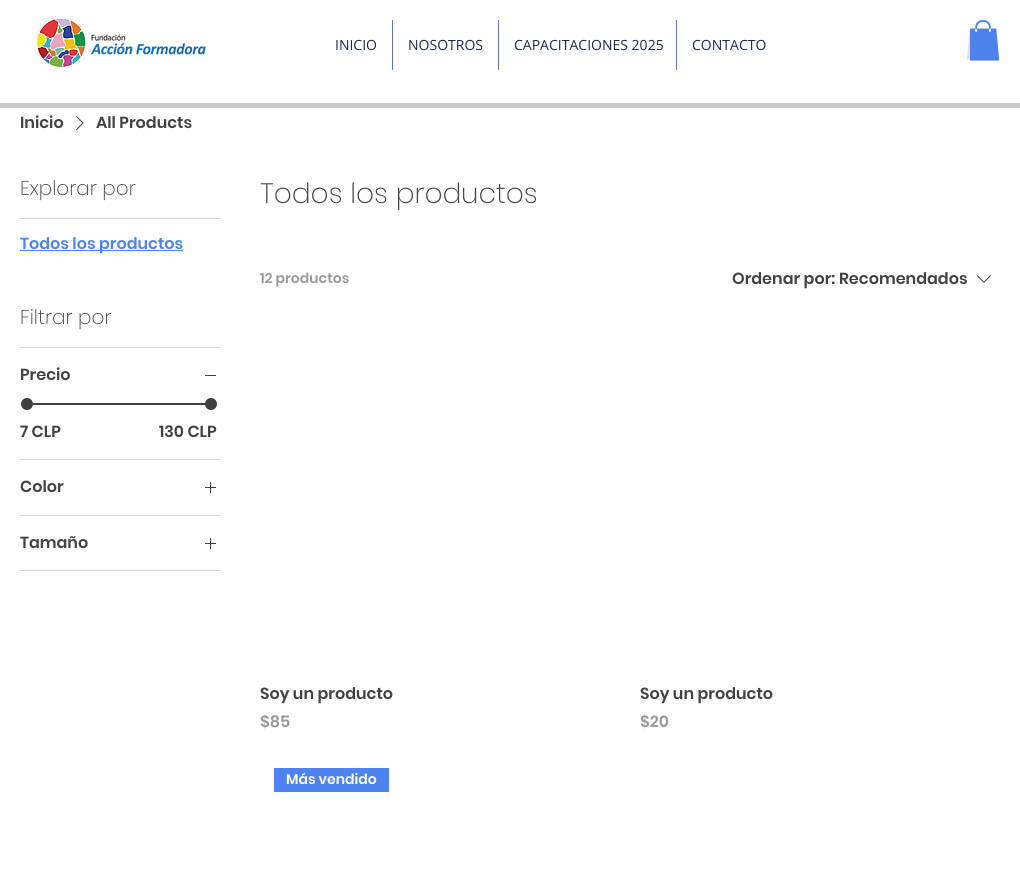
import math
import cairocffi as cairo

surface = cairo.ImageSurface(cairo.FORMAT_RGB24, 1020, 895)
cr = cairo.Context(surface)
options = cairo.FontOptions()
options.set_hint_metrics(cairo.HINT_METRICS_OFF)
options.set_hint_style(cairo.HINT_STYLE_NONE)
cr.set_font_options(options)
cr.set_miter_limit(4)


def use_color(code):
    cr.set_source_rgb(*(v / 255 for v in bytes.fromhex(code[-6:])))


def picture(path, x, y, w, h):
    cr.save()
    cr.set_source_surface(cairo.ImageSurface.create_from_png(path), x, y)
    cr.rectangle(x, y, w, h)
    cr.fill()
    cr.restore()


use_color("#ffffff")
cr.paint()
picture("img1.png", 35, 18, 171, 51)
picture("img2.png", 966, 20, 34, 41)
use_color("#c7c7c7")
cr.rectangle(0, 103, 1020, 5)
cr.fill()
cr.set_source_rgba(1, 1, 1, 0.8)
cr.rectangle(966, 28, 4, 33)
cr.fill()
cr.select_font_face("Open Sans")
cr.set_font_size(14)
use_color("#1a2b50")
cr.move_to(335, 50)
cr.show_text("INICIO")
use_color("#5c79b2")
cr.rectangle(392, 20, 1, 50)
cr.fill()
use_color("#1a2b50")
cr.move_to(408, 50)
cr.show_text("NOSOTROS")
use_color("#5c79b2")
cr.rectangle(498, 20, 1, 50)
cr.fill()
use_color("#1a2b50")
cr.move_to(514, 50)
cr.show_text("CAPACITACIONES 2025")
use_color("#5c79b2")
cr.rectangle(676, 20, 1, 50)
cr.fill()
use_color("#1a2b50")
cr.move_to(692, 50)
cr.show_text("CONTACTO")
cr.select_font_face("Poppins SemiBold")
cr.set_font_size(16)
use_color("#414141")
cr.move_to(20, 128)
cr.show_text("Inicio")
picture("img3.png", 76, 116, 8, 14)
cr.move_to(96, 128)
cr.show_text("All Products")
use_color("#d9d9d9")
cr.rectangle(20, 218, 200, 1)
cr.fill()
cr.select_font_face("Poppins ExtraLight")
cr.set_font_size(20)
use_color("#414141")
cr.move_to(20, 195)
cr.show_text("Explorar por")
use_color("#4d82ef")
cr.rectangle(20, 250, 163, 1)
cr.fill()
cr.select_font_face("Poppins SemiBold")
cr.set_font_size(16)
cr.move_to(20, 249)
cr.show_text("Todos los productos")
use_color("#d9d9d9")
cr.rectangle(20, 347, 200, 1)
cr.fill()
cr.select_font_face("Poppins ExtraLight")
cr.set_font_size(20)
use_color("#414141")
cr.move_to(20, 324)
cr.show_text("Filtrar por")
use_color("#d9d9d9")
cr.rectangle(20, 459, 200, 1)
cr.fill()
cr.select_font_face("Poppins SemiBold")
cr.set_font_size(16)
use_color("#414141")
cr.move_to(20, 380)
cr.show_text("Precio")
cr.rectangle(205, 375, 11, 1)
cr.fill()
cr.rectangle(26, 403, 184, 2)
cr.fill()
cr.arc(27, 404, 6, 0, 2 * math.pi)
cr.fill()
cr.arc(211, 404, 6, 0, 2 * math.pi)
cr.fill()
cr.move_to(20, 437)
cr.show_text("7 CLP")
cr.move_to(159, 437)
cr.show_text("130 CLP")
use_color("#d9d9d9")
cr.rectangle(20, 515, 200, 1)
cr.fill()
use_color("#414141")
cr.move_to(20, 492)
cr.show_text("Color")
picture("img4.png", 205, 482, 11, 11)
use_color("#d9d9d9")
cr.rectangle(20, 570, 200, 1)
cr.fill()
use_color("#414141")
cr.move_to(20, 548)
cr.show_text("Tamaño")
picture("img4.png", 205, 538, 11, 11)
cr.select_font_face("Poppins ExtraLight")
cr.set_font_size(28)
cr.move_to(260, 203)
cr.show_text("Todos los productos")
cr.select_font_face("Poppins SemiBold")
cr.set_font_size(14)
use_color("#999997")
cr.move_to(260, 283)
cr.show_text("12 productos")
cr.set_font_size(16)
use_color("#414141")
cr.move_to(732, 284)
cr.show_text("Ordenar por:")
cr.move_to(839, 284)
cr.show_text("Recomendados")
picture("img5.png", 976, 275, 15, 8)
cr.move_to(260, 699)
cr.show_text("Soy un producto")
use_color("#999997")
cr.move_to(260, 727)
cr.show_text("$85")
use_color("#414141")
cr.move_to(640, 699)
cr.show_text("Soy un producto")
use_color("#999997")
cr.move_to(640, 727)
cr.show_text("$20")
use_color("#4d82ef")
cr.rectangle(274, 768, 115, 24)
cr.fill()
cr.set_font_size(14)
use_color("#ffffff")
cr.move_to(286, 784)
cr.show_text("Más vendido")
surface.write_to_png("result.png")
